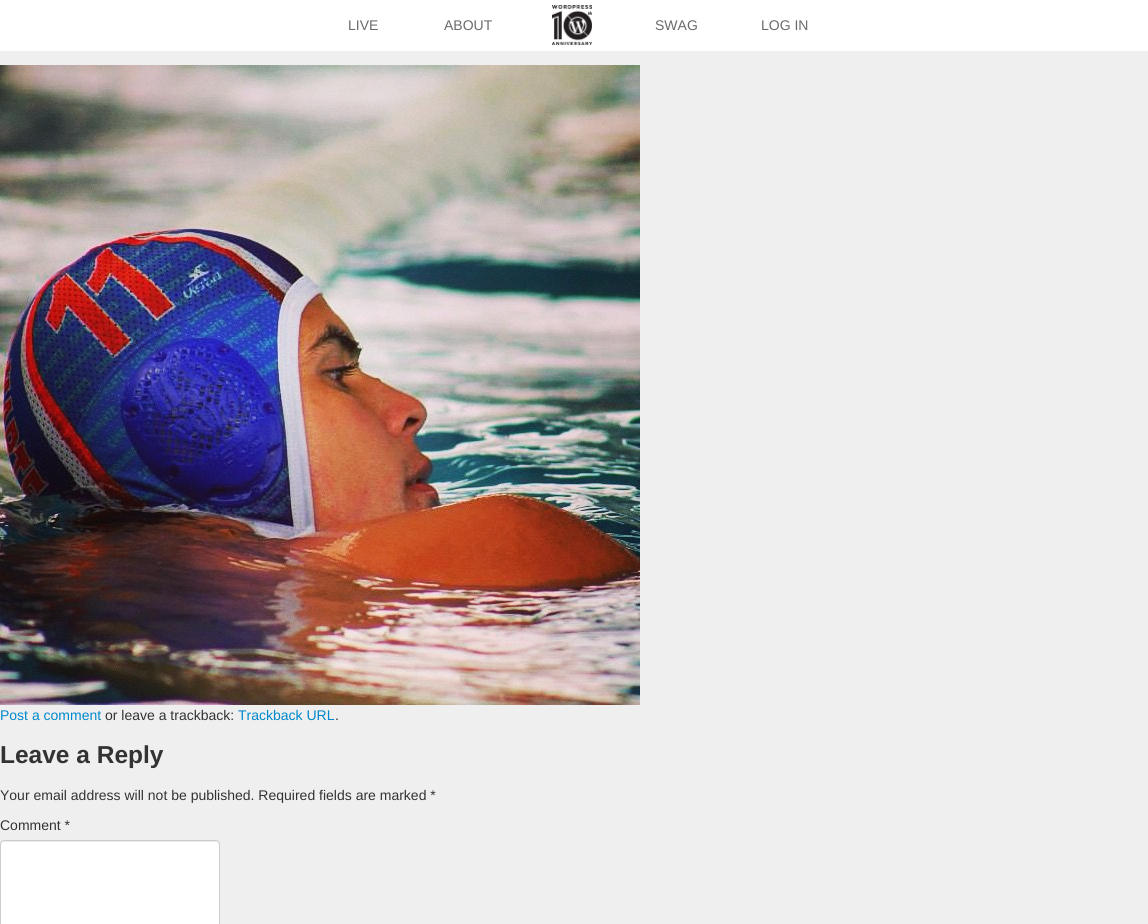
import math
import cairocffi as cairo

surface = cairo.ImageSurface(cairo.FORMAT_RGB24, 1148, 924)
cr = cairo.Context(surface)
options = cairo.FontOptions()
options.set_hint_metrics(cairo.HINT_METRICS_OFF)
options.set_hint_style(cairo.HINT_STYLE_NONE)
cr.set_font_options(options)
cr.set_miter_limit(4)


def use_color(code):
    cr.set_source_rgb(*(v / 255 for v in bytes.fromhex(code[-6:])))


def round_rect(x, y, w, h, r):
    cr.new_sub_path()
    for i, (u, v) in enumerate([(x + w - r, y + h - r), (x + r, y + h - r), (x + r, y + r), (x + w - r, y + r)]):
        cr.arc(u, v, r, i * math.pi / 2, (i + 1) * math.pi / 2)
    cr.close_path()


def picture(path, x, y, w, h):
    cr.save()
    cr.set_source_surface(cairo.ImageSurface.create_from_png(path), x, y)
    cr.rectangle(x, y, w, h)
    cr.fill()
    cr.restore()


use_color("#efefef")
cr.paint()
use_color("#ffffff")
cr.rectangle(0, 0, 1148, 51)
cr.fill()
cr.select_font_face("Liberation Sans")
cr.set_font_size(14)
use_color("#6a6a6a")
cr.move_to(348, 30)
cr.show_text("LIVE")
cr.move_to(444, 30)
cr.show_text("ABOUT")
picture("img1.png", 552, 5, 40, 40)
cr.move_to(655, 30)
cr.show_text("SWAG")
cr.move_to(761, 30)
cr.show_text("LOG IN")
picture("img2.png", 0, 65, 640, 640)
use_color("#0088cc")
cr.move_to(0, 720)
cr.show_text("Post a comment")
use_color("#333333")
cr.move_to(105, 720)
cr.show_text("or leave a trackback:")
use_color("#0088cc")
cr.move_to(238, 720)
cr.show_text("Trackback URL")
use_color("#333333")
cr.move_to(335, 720)
cr.show_text(".")
cr.select_font_face("Liberation Sans", cairo.FONT_SLANT_NORMAL, cairo.FONT_WEIGHT_BOLD)
cr.set_font_size(24.5)
cr.move_to(0, 763)
cr.show_text("Leave a Reply")
cr.select_font_face("Liberation Sans")
cr.set_font_size(14)
cr.move_to(0, 800)
cr.show_text("Your email address will not be published. Required fields are marked *")
cr.move_to(0, 830)
cr.show_text("Comment *")
use_color("#ffffff")
round_rect(0, 840, 220, 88, 4)
cr.fill()
use_color("#ececec")
cr.new_path()
cr.move_to(4, 842)
cr.line_to(216, 842)
cr.curve_to(218, 842, 219, 843, 219, 845)
cr.line_to(219, 844)
cr.curve_to(219, 842, 218, 841, 216, 841)
cr.line_to(4, 841)
cr.curve_to(2, 841, 1, 842, 1, 844)
cr.line_to(1, 845)
cr.curve_to(1, 843, 2, 842, 4, 842)
cr.close_path()
cr.fill()
round_rect(0.5, 840.5, 219, 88, 3.5)
use_color("#cccccc")
cr.set_line_width(1)
cr.stroke()
surface.write_to_png("result.png")
